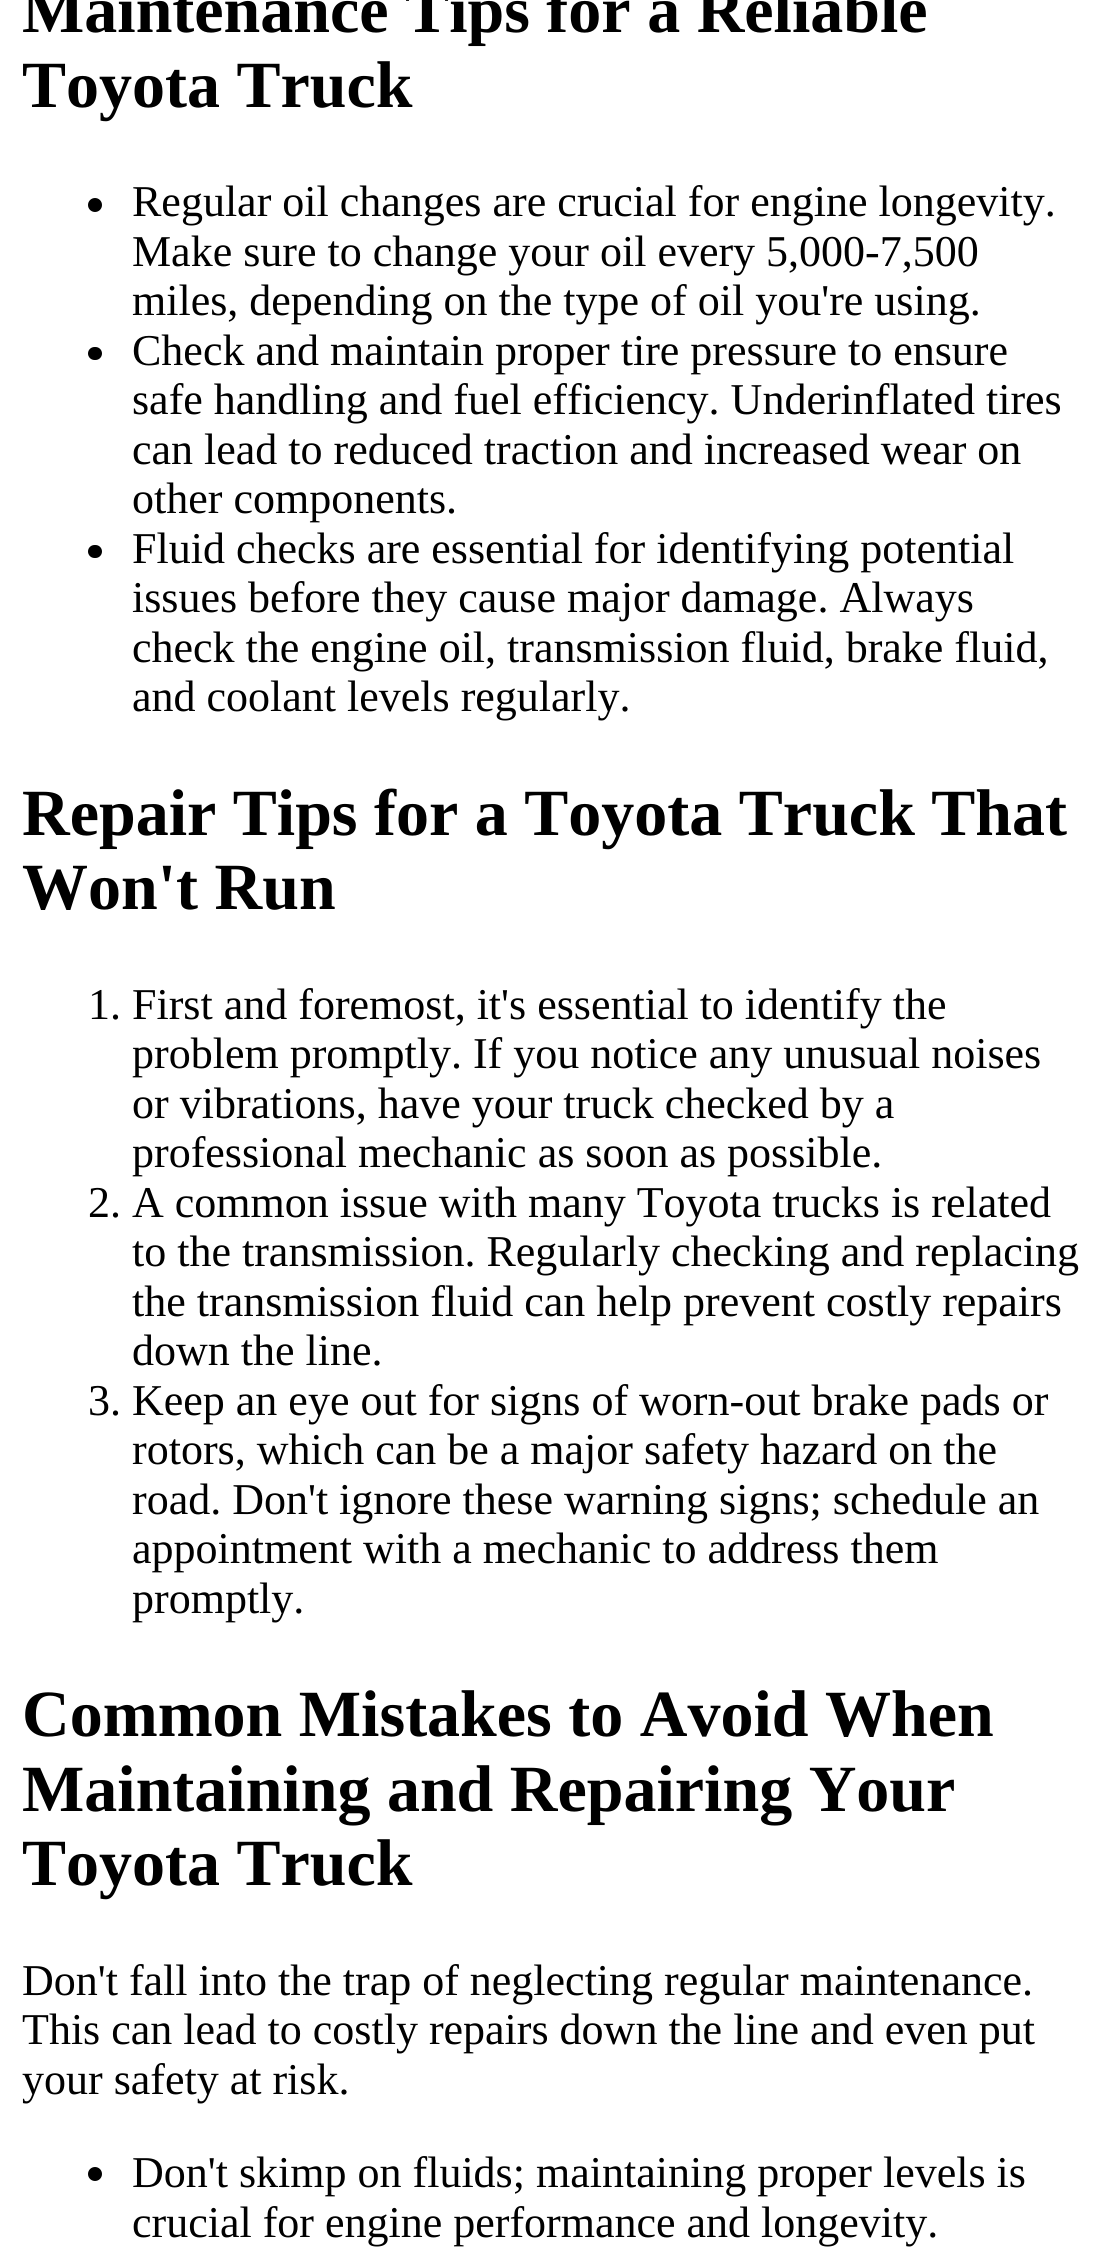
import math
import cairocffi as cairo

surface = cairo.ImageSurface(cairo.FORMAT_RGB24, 1107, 2256)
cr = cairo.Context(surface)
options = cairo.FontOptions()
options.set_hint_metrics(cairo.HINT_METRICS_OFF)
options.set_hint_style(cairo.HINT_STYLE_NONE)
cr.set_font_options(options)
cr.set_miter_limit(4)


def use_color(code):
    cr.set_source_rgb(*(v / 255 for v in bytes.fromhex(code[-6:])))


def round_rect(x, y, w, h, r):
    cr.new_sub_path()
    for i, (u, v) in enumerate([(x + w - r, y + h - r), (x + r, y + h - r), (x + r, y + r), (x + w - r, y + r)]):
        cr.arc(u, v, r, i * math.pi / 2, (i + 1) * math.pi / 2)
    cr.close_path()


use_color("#ffffff")
cr.paint()
cr.select_font_face("Liberation Serif", cairo.FONT_SLANT_NORMAL, cairo.FONT_WEIGHT_BOLD)
cr.set_font_size(66)
use_color("#000000")
cr.move_to(22, 32)
cr.show_text("Maintenance Tips for a Reliable")
cr.move_to(22, 107)
cr.show_text("Toyota Truck")
cr.new_path()
cr.arc(95, 205, 7, 0, 2 * math.pi)
cr.fill()
cr.select_font_face("Liberation Serif")
cr.set_font_size(44)
cr.move_to(132, 216)
cr.show_text("Regular oil changes are crucial for engine longevity.")
cr.move_to(132, 266)
cr.show_text("Make sure to change your oil every 5,000-7,500")
cr.move_to(132, 315)
cr.show_text("miles, depending on the type of oil you're using.")
round_rect(88, 347, 14, 13, 6.5)
cr.fill()
cr.move_to(132, 365)
cr.show_text("Check and maintain proper tire pressure to ensure")
cr.move_to(132, 414)
cr.show_text("safe handling and fuel efficiency. Underinflated tires")
cr.move_to(132, 464)
cr.show_text("can lead to reduced traction and increased wear on")
cr.move_to(132, 513)
cr.show_text("other components.")
round_rect(88, 545, 14, 13, 6.5)
cr.fill()
cr.move_to(132, 563)
cr.show_text("Fluid checks are essential for identifying potential")
cr.move_to(132, 612)
cr.show_text("issues before they cause major damage. Always")
cr.move_to(132, 662)
cr.show_text("check the engine oil, transmission fluid, brake fluid,")
cr.move_to(132, 711)
cr.show_text("and coolant levels regularly.")
cr.select_font_face("Liberation Serif", cairo.FONT_SLANT_NORMAL, cairo.FONT_WEIGHT_BOLD)
cr.set_font_size(66)
cr.move_to(22, 835)
cr.show_text("Repair Tips for a Toyota Truck That")
cr.move_to(22, 909)
cr.show_text("Won't Run")
cr.select_font_face("Liberation Serif")
cr.set_font_size(44)
cr.move_to(88, 1019)
cr.show_text("1. First and foremost, it's essential to identify the")
cr.move_to(132, 1068)
cr.show_text("problem promptly. If you notice any unusual noises")
cr.move_to(132, 1118)
cr.show_text("or vibrations, have your truck checked by a")
cr.move_to(132, 1167)
cr.show_text("professional mechanic as soon as possible.")
cr.move_to(88, 1217)
cr.show_text("2. A common issue with many Toyota trucks is related")
cr.move_to(132, 1266)
cr.show_text("to the transmission. Regularly checking and replacing")
cr.move_to(132, 1316)
cr.show_text("the transmission fluid can help prevent costly repairs")
cr.move_to(132, 1365)
cr.show_text("down the line.")
cr.move_to(88, 1415)
cr.show_text("3. Keep an eye out for signs of worn-out brake pads or")
cr.move_to(132, 1464)
cr.show_text("rotors, which can be a major safety hazard on the")
cr.move_to(132, 1514)
cr.show_text("road. Don't ignore these warning signs; schedule an")
cr.move_to(132, 1563)
cr.show_text("appointment with a mechanic to address them")
cr.move_to(132, 1613)
cr.show_text("promptly.")
cr.select_font_face("Liberation Serif", cairo.FONT_SLANT_NORMAL, cairo.FONT_WEIGHT_BOLD)
cr.set_font_size(66)
cr.move_to(22, 1736)
cr.show_text("Common Mistakes to Avoid When")
cr.move_to(22, 1811)
cr.show_text("Maintaining and Repairing Your")
cr.move_to(22, 1885)
cr.show_text("Toyota Truck")
cr.select_font_face("Liberation Serif")
cr.set_font_size(44)
cr.move_to(22, 1995)
cr.show_text("Don't fall into the trap of neglecting regular maintenance.")
cr.move_to(22, 2044)
cr.show_text("This can lead to costly repairs down the line and even put")
cr.move_to(22, 2094)
cr.show_text("your safety at risk.")
cr.new_path()
cr.arc(95, 2174, 7, 0, 2 * math.pi)
cr.fill()
cr.move_to(132, 2187)
cr.show_text("Don't skimp on fluids; maintaining proper levels is")
cr.move_to(132, 2237)
cr.show_text("crucial for engine performance and longevity.")
surface.write_to_png("result.png")
